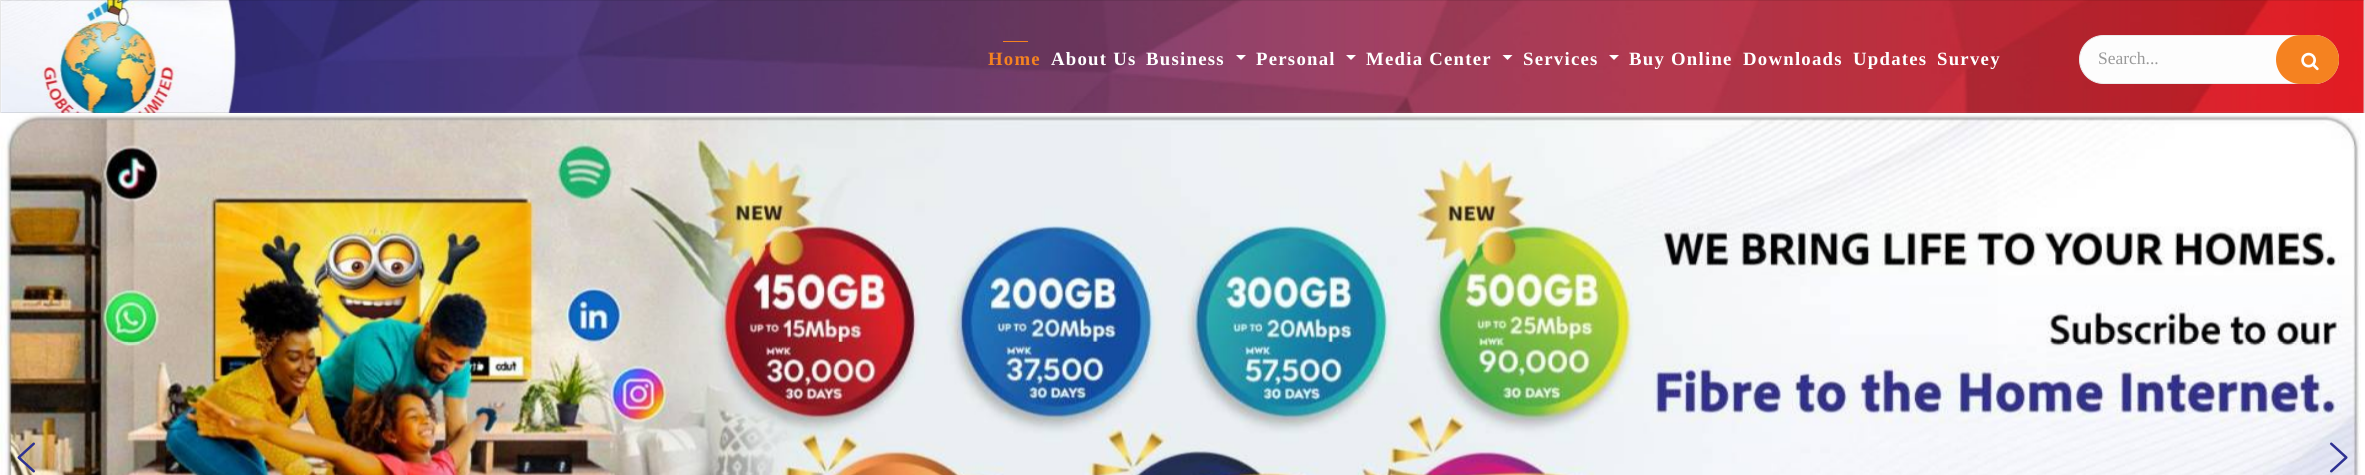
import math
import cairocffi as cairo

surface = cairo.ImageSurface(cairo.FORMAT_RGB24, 2365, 475)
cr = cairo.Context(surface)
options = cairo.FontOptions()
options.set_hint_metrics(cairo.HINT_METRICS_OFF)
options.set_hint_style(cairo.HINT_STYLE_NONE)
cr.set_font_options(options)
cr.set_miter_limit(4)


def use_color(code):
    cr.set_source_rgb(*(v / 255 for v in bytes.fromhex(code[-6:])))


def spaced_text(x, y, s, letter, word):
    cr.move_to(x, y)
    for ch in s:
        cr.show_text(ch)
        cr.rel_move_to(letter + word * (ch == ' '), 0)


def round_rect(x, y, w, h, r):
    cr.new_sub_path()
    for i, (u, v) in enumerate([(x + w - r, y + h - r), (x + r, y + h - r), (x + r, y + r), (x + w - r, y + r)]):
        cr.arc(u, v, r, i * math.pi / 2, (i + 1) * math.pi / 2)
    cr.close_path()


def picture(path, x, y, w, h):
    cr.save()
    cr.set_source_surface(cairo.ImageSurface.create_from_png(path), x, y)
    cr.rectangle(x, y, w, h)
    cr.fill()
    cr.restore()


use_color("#ffffff")
cr.paint()
picture("img1.png", 1, 0, 2364, 113)
cr.rectangle(0.5, 0.5, 2364, 112)
cr.set_source_rgba(0, 0, 0, 0.1)
cr.set_line_width(1)
cr.stroke()
use_color("#f58220")
cr.rectangle(1003, 41, 25, 1)
cr.fill()
cr.select_font_face("Liberation Serif", cairo.FONT_SLANT_NORMAL, cairo.FONT_WEIGHT_BOLD)
cr.set_font_size(18.75)
spaced_text(988, 65, "Home", 1.25, 0)
use_color("#ffffff")
spaced_text(1051, 65, "About Us", 1.25, 0)
spaced_text(1146, 65, "Business", 1.25, 0)
cr.new_path()
cr.move_to(1236, 55)
cr.line_to(1246, 55)
cr.line_to(1241, 60)
cr.close_path()
cr.fill()
spaced_text(1256, 65, "Personal", 1.25, 0)
cr.new_path()
cr.move_to(1346, 55)
cr.line_to(1356, 55)
cr.line_to(1351, 60)
cr.close_path()
cr.fill()
spaced_text(1366, 65, "Media Center", 1.25, 0)
cr.new_path()
cr.move_to(1502.5, 55)
cr.line_to(1512.5, 55)
cr.line_to(1507.5, 60)
cr.close_path()
cr.fill()
spaced_text(1523, 65, "Services", 1.25, 0)
cr.new_path()
cr.move_to(1609, 55)
cr.line_to(1619, 55)
cr.line_to(1614, 60)
cr.close_path()
cr.fill()
spaced_text(1629, 65, "Buy Online", 1.25, 0)
spaced_text(1743, 65, "Downloads", 1.25, 0)
spaced_text(1853, 65, "Updates", 1.25, 0)
spaced_text(1937, 65, "Survey", 1.25, 0)
use_color("#fdfdfd")
round_rect(2079.5, 35.5, 259, 48, 24)
cr.fill_preserve()
use_color("#ececec")
cr.stroke()
cr.select_font_face("Liberation Serif")
cr.set_font_size(17.5)
use_color("#999999")
cr.move_to(2098, 64)
cr.show_text("Search...")
use_color("#f58220")
round_rect(2276, 35, 63, 49, 24.5)
cr.fill()
picture("img2.png", 2301, 52, 18, 19)
picture("img3.png", 0, 113, 2361, 362)
picture("img4.png", 17, 442, 18, 31)
picture("img5.png", 2330, 442, 18, 31)
surface.write_to_png("result.png")
